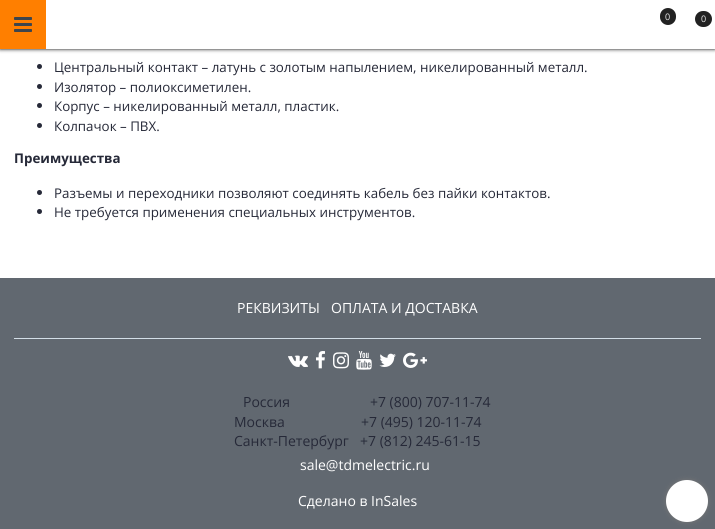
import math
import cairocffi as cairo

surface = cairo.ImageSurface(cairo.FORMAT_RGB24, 715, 529)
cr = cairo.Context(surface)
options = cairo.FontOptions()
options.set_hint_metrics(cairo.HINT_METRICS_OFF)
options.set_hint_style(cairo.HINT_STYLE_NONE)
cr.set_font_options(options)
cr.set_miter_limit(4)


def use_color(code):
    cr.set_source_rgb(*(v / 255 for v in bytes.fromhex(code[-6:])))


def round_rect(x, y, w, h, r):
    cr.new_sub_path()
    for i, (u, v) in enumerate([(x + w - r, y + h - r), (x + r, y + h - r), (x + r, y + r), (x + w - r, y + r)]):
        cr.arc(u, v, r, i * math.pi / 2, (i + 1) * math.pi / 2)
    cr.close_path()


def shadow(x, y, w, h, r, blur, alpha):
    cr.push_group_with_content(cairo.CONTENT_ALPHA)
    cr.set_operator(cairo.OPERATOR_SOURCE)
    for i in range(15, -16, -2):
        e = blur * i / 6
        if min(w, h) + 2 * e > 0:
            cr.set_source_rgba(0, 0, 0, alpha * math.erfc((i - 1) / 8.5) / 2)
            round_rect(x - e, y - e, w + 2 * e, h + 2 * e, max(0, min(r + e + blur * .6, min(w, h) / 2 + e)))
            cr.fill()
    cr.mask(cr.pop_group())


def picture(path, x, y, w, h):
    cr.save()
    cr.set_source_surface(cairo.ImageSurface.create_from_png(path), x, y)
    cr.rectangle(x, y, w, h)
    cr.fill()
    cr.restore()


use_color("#ffffff")
cr.paint()
use_color("#000000")
shadow(0, 0, 715, 49, 0, 2, 1)
use_color("#ffffff")
cr.rectangle(46, 0, 669, 49)
cr.fill()
use_color("#ff7f00")
cr.rectangle(0, 0, 46, 49)
cr.fill()
picture("img1.png", 14, 17, 18, 15)
use_color("#222222")
round_rect(660, 8, 16, 17, 8)
cr.fill()
cr.select_font_face("Open Sans")
cr.set_font_size(9)
use_color("#eeeeee")
cr.move_to(665, 20)
cr.show_text("0")
use_color("#222222")
round_rect(695, 11, 17, 16, 8)
cr.fill()
use_color("#eeeeee")
cr.move_to(701, 22)
cr.show_text("0")
use_color("#262938")
cr.new_path()
cr.arc(39.5, 66.5, 2.5, 0, 2 * math.pi)
cr.fill()
cr.set_font_size(13.35)
cr.move_to(54, 72)
cr.show_text("Центральный контакт – латунь с золотым напылением, никелированный металл.")
cr.new_path()
cr.arc(39.5, 86.5, 2.5, 0, 2 * math.pi)
cr.fill()
cr.move_to(54, 92)
cr.show_text("Изолятор – полиоксиметилен.")
cr.new_path()
cr.arc(39.5, 105.5, 2.5, 0, 2 * math.pi)
cr.fill()
cr.move_to(54, 111)
cr.show_text("Корпус – никелированный металл, пластик.")
cr.new_path()
cr.arc(39.5, 125.5, 2.5, 0, 2 * math.pi)
cr.fill()
cr.move_to(54, 131)
cr.show_text("Колпачок – ПВХ.")
cr.select_font_face("Open Sans", cairo.FONT_SLANT_NORMAL, cairo.FONT_WEIGHT_BOLD)
cr.move_to(14, 163)
cr.show_text("Преимущества")
cr.new_path()
cr.arc(39.5, 192.5, 2.5, 0, 2 * math.pi)
cr.fill()
cr.select_font_face("Open Sans")
cr.move_to(54, 198)
cr.show_text("Разъемы и переходники позволяют соединять кабель без пайки контактов.")
cr.new_path()
cr.arc(39.5, 211.5, 2.5, 0, 2 * math.pi)
cr.fill()
cr.move_to(54, 217)
cr.show_text("Не требуется применения специальных инструментов.")
use_color("#616870")
cr.rectangle(0, 278, 715, 251)
cr.fill()
use_color("#d3dee7")
cr.rectangle(14, 338, 687, 1)
cr.fill()
cr.set_font_size(14)
use_color("#ffffff")
cr.move_to(237, 313)
cr.show_text("РЕКВИЗИТЫ")
cr.move_to(331, 313)
cr.show_text("ОПЛАТА И ДОСТАВКА")
picture("img2.png", 288, 355, 20, 12)
picture("img3.png", 316, 351, 9, 18)
picture("img4.png", 333, 352, 16, 17)
picture("img5.png", 356, 351, 16, 19)
picture("img6.png", 379, 353, 17, 14)
picture("img7.png", 403, 352, 24, 16)
use_color("#262938")
cr.move_to(243, 407)
cr.show_text("Россия                      +7 (800) 707-11-74")
cr.move_to(234, 427)
cr.show_text("Москва")
cr.move_to(361, 427)
cr.show_text("+7 (495) 120-11-74")
cr.move_to(234, 446)
cr.show_text("Санкт-Петербург")
cr.move_to(360, 446)
cr.show_text("+7 (812) 245-61-15")
use_color("#ffffff")
cr.move_to(300, 470)
cr.show_text("sale@tdmelectric.ru")
cr.move_to(298, 506)
cr.show_text("Сделано в InSales")
use_color("#777777")
shadow(666, 480, 42, 42, 21, 2.5, 1)
use_color("#ffffff")
cr.arc(687, 501, 21, 0, 2 * math.pi)
cr.fill()
surface.write_to_png("result.png")
